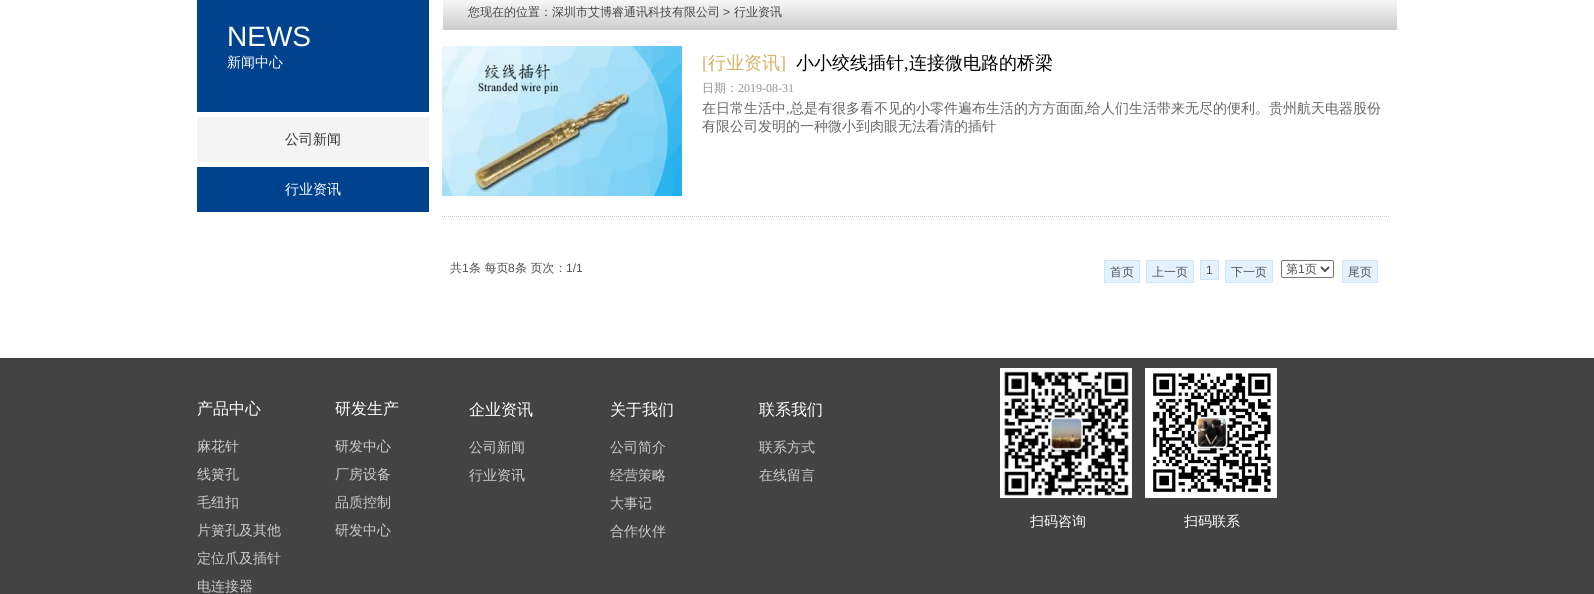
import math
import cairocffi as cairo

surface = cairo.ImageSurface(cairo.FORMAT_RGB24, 1594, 594)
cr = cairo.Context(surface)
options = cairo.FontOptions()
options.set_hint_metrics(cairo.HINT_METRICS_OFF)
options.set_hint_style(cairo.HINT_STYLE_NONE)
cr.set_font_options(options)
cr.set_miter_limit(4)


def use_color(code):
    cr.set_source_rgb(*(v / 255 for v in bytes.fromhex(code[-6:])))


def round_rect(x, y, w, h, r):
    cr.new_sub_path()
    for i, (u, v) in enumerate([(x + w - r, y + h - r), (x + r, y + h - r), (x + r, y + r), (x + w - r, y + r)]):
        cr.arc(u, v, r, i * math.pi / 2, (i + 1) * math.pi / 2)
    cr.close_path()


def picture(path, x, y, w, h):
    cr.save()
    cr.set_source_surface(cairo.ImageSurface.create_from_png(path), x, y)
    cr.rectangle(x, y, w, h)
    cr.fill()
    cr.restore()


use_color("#ffffff")
cr.paint()
picture("img1.png", 443, 0, 954, 30)
cr.select_font_face("WenQuanYi Zen Hei Medium")
cr.set_font_size(12)
use_color("#464646")
cr.move_to(468, 16)
cr.show_text("您现在的位置：深圳市艾博睿通讯科技有限公司")
cr.select_font_face("Liberation Sans")
cr.move_to(723, 16)
cr.show_text(">")
cr.select_font_face("WenQuanYi Zen Hei Medium")
cr.move_to(734, 16)
cr.show_text("行业资讯")
use_color("#00428e")
cr.rectangle(197, 0, 232, 112)
cr.fill()
cr.select_font_face("Liberation Sans")
cr.set_font_size(28)
use_color("#ffffff")
cr.move_to(227, 46)
cr.show_text("NEWS")
cr.select_font_face("WenQuanYi Zen Hei Medium")
cr.set_font_size(14)
cr.move_to(227, 67)
cr.show_text("新闻中心")
use_color("#f4f4f4")
cr.rectangle(197, 117, 232, 45)
cr.fill()
use_color("#333333")
cr.move_to(285, 144)
cr.show_text("公司新闻")
use_color("#00428e")
cr.rectangle(197, 167, 232, 45)
cr.fill()
use_color("#ffffff")
cr.move_to(285, 194)
cr.show_text("行业资讯")
cr.new_path()
cr.move_to(442, 216.5)
cr.line_to(1389, 216.5)
use_color("#cccccc")
cr.set_line_width(1)
cr.set_dash([1, 1])
cr.stroke()
picture("img2.png", 442, 46, 240, 150)
cr.select_font_face("Liberation Serif")
cr.set_font_size(18)
use_color("#d3b167")
cr.move_to(702, 69)
cr.show_text("[")
cr.select_font_face("WenQuanYi Zen Hei Medium")
cr.move_to(708, 69)
cr.show_text("行业资讯")
cr.select_font_face("Liberation Serif")
cr.move_to(780, 69)
cr.show_text("]")
cr.select_font_face("WenQuanYi Zen Hei Medium")
use_color("#000000")
cr.move_to(796, 69)
cr.show_text("小小绞线插针")
cr.select_font_face("Liberation Serif")
cr.move_to(904, 69)
cr.show_text(",")
cr.select_font_face("WenQuanYi Zen Hei Medium")
cr.move_to(909, 69)
cr.show_text("连接微电路的桥梁")
cr.set_font_size(12)
use_color("#929292")
cr.move_to(702, 92)
cr.show_text("日期：")
cr.select_font_face("Liberation Serif")
cr.move_to(738, 92)
cr.show_text("2019-08-31")
cr.select_font_face("WenQuanYi Zen Hei Medium")
cr.set_font_size(14)
use_color("#666666")
cr.move_to(702, 113)
cr.show_text("在日常生活中")
cr.select_font_face("Liberation Serif")
cr.move_to(786, 113)
cr.show_text(",")
cr.select_font_face("WenQuanYi Zen Hei Medium")
cr.move_to(790, 113)
cr.show_text("总是有很多看不见的小零件遍布生活的方方面面")
cr.select_font_face("Liberation Serif")
cr.move_to(1084, 113)
cr.show_text(",")
cr.select_font_face("WenQuanYi Zen Hei Medium")
cr.move_to(1087, 113)
cr.show_text("给人们生活带来无尽的便利。贵州航天电器股份")
cr.move_to(702, 131)
cr.show_text("有限公司发明的一种微小到肉眼无法看清的插针")
cr.set_font_size(12)
use_color("#505050")
cr.move_to(450, 272)
cr.show_text("共")
cr.select_font_face("Liberation Sans")
cr.move_to(462, 272)
cr.show_text("1")
cr.select_font_face("WenQuanYi Zen Hei Medium")
cr.move_to(469, 272)
cr.show_text("条 每页")
cr.select_font_face("Liberation Sans")
cr.move_to(508, 272)
cr.show_text("8")
cr.select_font_face("WenQuanYi Zen Hei Medium")
cr.move_to(515, 272)
cr.show_text("条 页次：")
cr.select_font_face("Liberation Sans")
cr.move_to(566, 272)
cr.show_text("1/1")
use_color("#e4f2ff")
cr.rectangle(1104.5, 260.5, 35, 22)
cr.fill_preserve()
use_color("#cde6ff")
cr.set_dash([])
cr.stroke()
cr.select_font_face("WenQuanYi Zen Hei Medium")
use_color("#505050")
cr.move_to(1110, 276)
cr.show_text("首页")
use_color("#e4f2ff")
cr.rectangle(1146.5, 260.5, 47, 22)
cr.fill_preserve()
use_color("#cde6ff")
cr.stroke()
use_color("#505050")
cr.move_to(1152, 276)
cr.show_text("上一页")
use_color("#e4f2ff")
cr.rectangle(1200.5, 260.5, 18, 19)
cr.fill_preserve()
use_color("#cde6ff")
cr.stroke()
cr.select_font_face("Liberation Sans")
use_color("#505050")
cr.move_to(1206, 274)
cr.show_text("1")
use_color("#e4f2ff")
cr.rectangle(1225.5, 260.5, 47, 22)
cr.fill_preserve()
use_color("#cde6ff")
cr.stroke()
cr.select_font_face("WenQuanYi Zen Hei Medium")
use_color("#505050")
cr.move_to(1231, 276)
cr.show_text("下一页")
round_rect(1281.5, 260.5, 52, 17, 1.5)
use_color("#767676")
cr.stroke()
cr.new_path()
cr.move_to(1321, 267)
cr.line_to(1325, 271)
cr.line_to(1329, 267)
use_color("#505050")
cr.set_line_width(2)
cr.stroke()
cr.move_to(1286, 273)
cr.show_text("第")
cr.select_font_face("Liberation Sans")
cr.move_to(1298, 273)
cr.show_text("1")
cr.select_font_face("WenQuanYi Zen Hei Medium")
cr.move_to(1305, 273)
cr.show_text("页")
use_color("#e4f2ff")
cr.rectangle(1342.5, 260.5, 35, 22)
cr.fill_preserve()
use_color("#cde6ff")
cr.set_line_width(1)
cr.stroke()
use_color("#505050")
cr.move_to(1348, 276)
cr.show_text("尾页")
use_color("#434343")
cr.rectangle(0, 358, 1594, 236)
cr.fill()
cr.set_font_size(16)
use_color("#ffffff")
cr.move_to(197, 414)
cr.show_text("产品中心")
cr.set_font_size(14)
use_color("#cccccc")
cr.move_to(197, 451)
cr.show_text("麻花针")
cr.move_to(197, 479)
cr.show_text("线簧孔")
cr.move_to(197, 507)
cr.show_text("毛纽扣")
cr.move_to(197, 535)
cr.show_text("片簧孔及其他")
cr.move_to(197, 563)
cr.show_text("定位爪及插针")
cr.move_to(197, 591)
cr.show_text("电连接器")
cr.set_font_size(16)
use_color("#ffffff")
cr.move_to(335, 414)
cr.show_text("研发生产")
cr.set_font_size(14)
use_color("#cccccc")
cr.move_to(335, 451)
cr.show_text("研发中心")
cr.move_to(335, 479)
cr.show_text("厂房设备")
cr.move_to(335, 507)
cr.show_text("品质控制")
cr.move_to(335, 535)
cr.show_text("研发中心")
cr.set_font_size(16)
use_color("#ffffff")
cr.move_to(469, 415)
cr.show_text("企业资讯")
cr.set_font_size(14)
use_color("#cccccc")
cr.move_to(469, 452)
cr.show_text("公司新闻")
cr.move_to(469, 480)
cr.show_text("行业资讯")
cr.set_font_size(16)
use_color("#ffffff")
cr.move_to(610, 415)
cr.show_text("关于我们")
cr.set_font_size(14)
use_color("#cccccc")
cr.move_to(610, 452)
cr.show_text("公司简介")
cr.move_to(610, 480)
cr.show_text("经营策略")
cr.move_to(610, 508)
cr.show_text("大事记")
cr.move_to(610, 536)
cr.show_text("合作伙伴")
cr.set_font_size(16)
use_color("#ffffff")
cr.move_to(759, 415)
cr.show_text("联系我们")
cr.set_font_size(14)
use_color("#cccccc")
cr.move_to(759, 452)
cr.show_text("联系方式")
cr.move_to(759, 480)
cr.show_text("在线留言")
picture("img3.png", 1000, 368, 132, 130)
picture("img4.png", 1145, 368, 132, 130)
use_color("#ffffff")
cr.move_to(1030, 526)
cr.show_text("扫码咨询")
cr.move_to(1184, 526)
cr.show_text("扫码联系")
surface.write_to_png("result.png")
